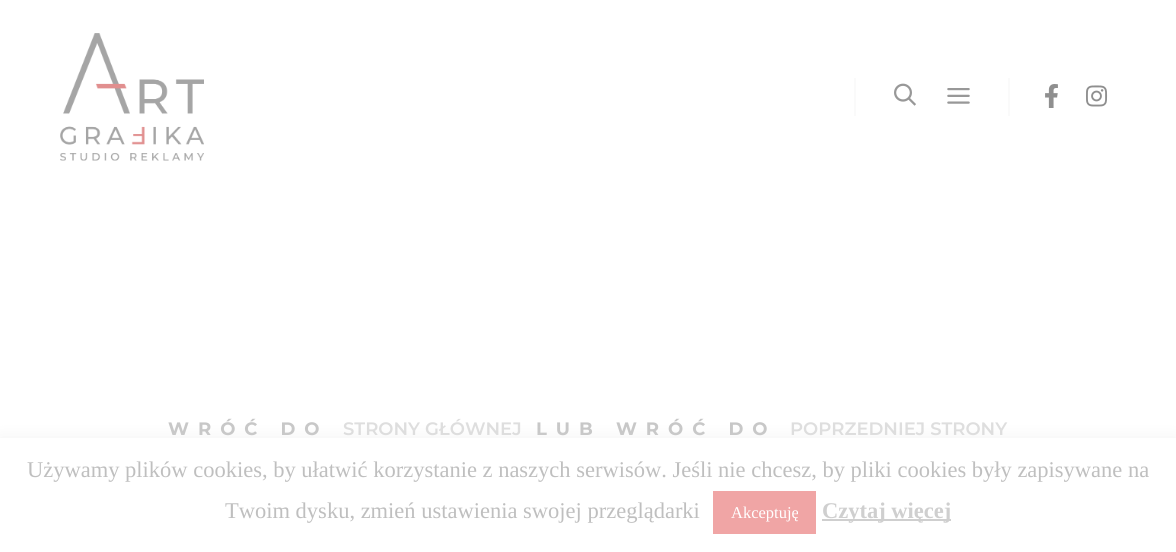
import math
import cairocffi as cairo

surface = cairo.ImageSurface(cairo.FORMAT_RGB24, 1176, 552)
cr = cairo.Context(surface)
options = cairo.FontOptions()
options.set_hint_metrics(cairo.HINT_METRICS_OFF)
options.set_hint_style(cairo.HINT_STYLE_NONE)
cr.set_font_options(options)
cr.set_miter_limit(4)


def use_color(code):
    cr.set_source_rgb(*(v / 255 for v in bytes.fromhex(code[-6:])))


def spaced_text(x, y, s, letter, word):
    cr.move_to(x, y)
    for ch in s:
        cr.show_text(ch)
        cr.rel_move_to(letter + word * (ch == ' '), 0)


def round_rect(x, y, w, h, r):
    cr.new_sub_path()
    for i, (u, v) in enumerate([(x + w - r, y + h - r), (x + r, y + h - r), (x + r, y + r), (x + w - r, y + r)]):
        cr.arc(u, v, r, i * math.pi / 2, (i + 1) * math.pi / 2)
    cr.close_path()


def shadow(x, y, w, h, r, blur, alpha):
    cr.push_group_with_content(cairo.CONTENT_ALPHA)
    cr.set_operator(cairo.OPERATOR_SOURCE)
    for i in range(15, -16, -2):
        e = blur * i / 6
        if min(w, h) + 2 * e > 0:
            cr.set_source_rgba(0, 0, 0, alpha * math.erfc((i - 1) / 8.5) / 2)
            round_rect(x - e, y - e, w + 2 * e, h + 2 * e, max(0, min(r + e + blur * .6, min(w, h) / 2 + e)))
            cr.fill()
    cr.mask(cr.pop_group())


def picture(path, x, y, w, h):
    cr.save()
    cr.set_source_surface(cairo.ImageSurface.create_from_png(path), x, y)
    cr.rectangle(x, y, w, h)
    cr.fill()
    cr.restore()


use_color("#ffffff")
cr.paint()
picture("img1.png", 60, 33, 144, 128)
use_color("#fafafa")
cr.rectangle(854, 78, 2, 38)
cr.fill()
picture("img2.png", 894, 83, 22, 23)
picture("img3.png", 947, 88, 23, 16)
cr.rectangle(1008, 78, 2, 38)
cr.fill()
picture("img4.png", 1045, 84, 13, 24)
picture("img5.png", 1086, 85, 22, 22)
cr.select_font_face("Montserrat", cairo.FONT_SLANT_NORMAL, cairo.FONT_WEIGHT_BOLD)
cr.set_font_size(18)
use_color("#c7c7c7")
spaced_text(168, 435, "WRÓĆ DO", 9, 0)
cr.select_font_face("Montserrat SemiBold")
use_color("#dedede")
cr.move_to(343, 435)
cr.show_text("STRONY GŁÓWNEJ")
cr.select_font_face("Montserrat", cairo.FONT_SLANT_NORMAL, cairo.FONT_WEIGHT_BOLD)
use_color("#c7c7c7")
spaced_text(536, 435, "LUB WRÓĆ DO", 9, 0)
cr.select_font_face("Montserrat SemiBold")
use_color("#dedede")
cr.move_to(790, 435)
cr.show_text("POPRZEDNIEJ STRONY")
use_color("#dadada")
shadow(0, 437, 1176, 114, 0, 7.5, 0.3)
use_color("#ffffff")
cr.rectangle(0, 438, 1176, 114)
cr.fill()
cr.select_font_face("Liberation Serif")
cr.set_font_size(22.5)
use_color("#bfbfbf")
cr.move_to(27, 477)
cr.show_text("Używamy plików cookies, by ułatwić korzystanie z naszych serwisów. Jeśli nie chcesz, by pliki cookies były zapisywane na")
cr.move_to(225, 518)
cr.show_text("Twoim dysku, zmień ustawienia swojej przeglądarki")
use_color("#f0a5a5")
cr.rectangle(713, 491, 103, 43)
cr.fill()
cr.set_font_size(16.5)
use_color("#ffffff")
cr.move_to(731, 518)
cr.show_text("Akceptuję")
use_color("#cfcfcf")
cr.rectangle(822, 519, 129, 2)
cr.fill()
cr.select_font_face("Liberation Serif", cairo.FONT_SLANT_NORMAL, cairo.FONT_WEIGHT_BOLD)
cr.set_font_size(22.5)
cr.move_to(822, 518)
cr.show_text("Czytaj więcej")
surface.write_to_png("result.png")
